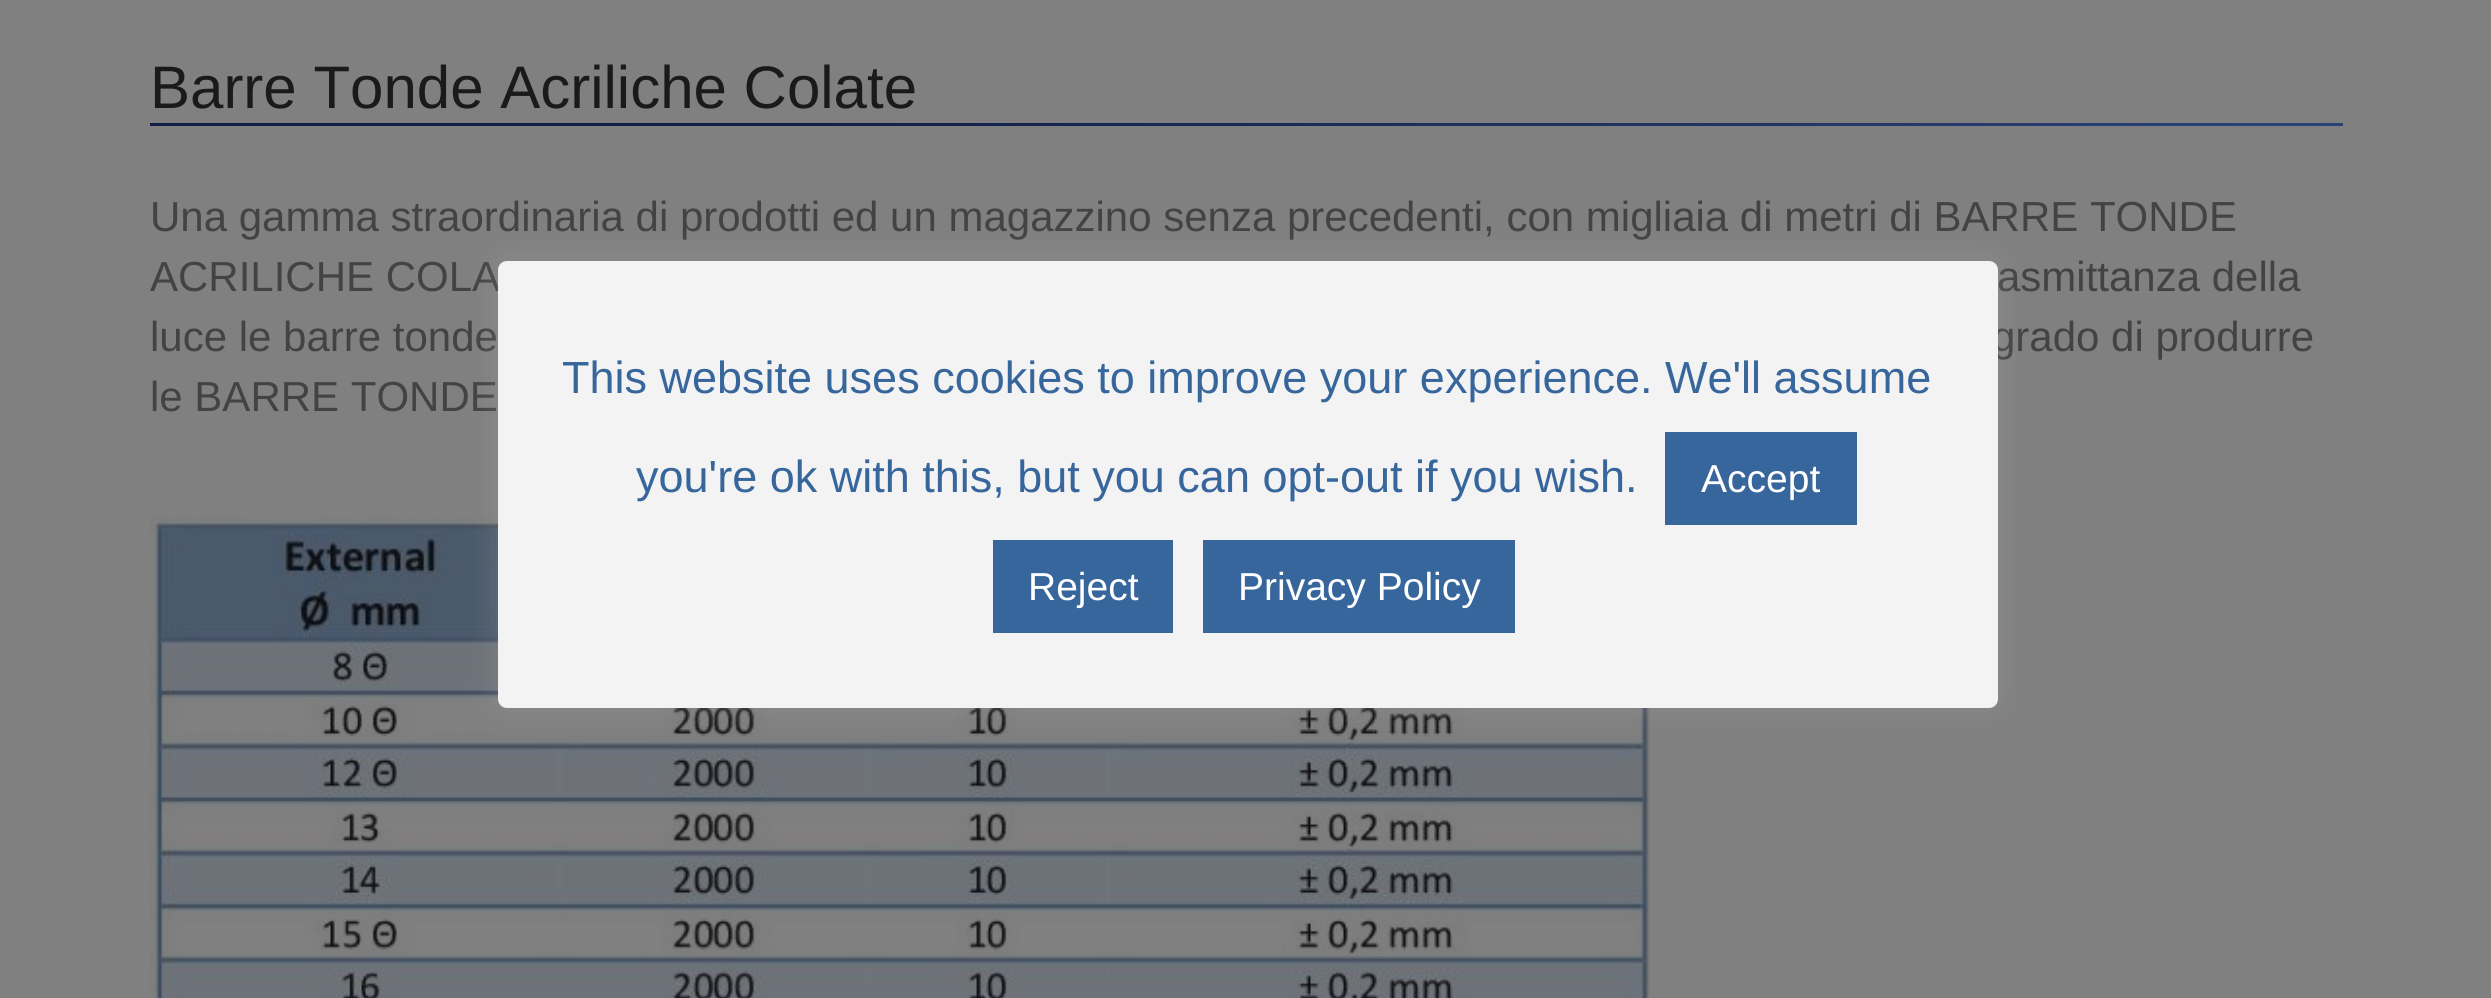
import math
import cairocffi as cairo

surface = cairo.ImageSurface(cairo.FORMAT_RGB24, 2491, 998)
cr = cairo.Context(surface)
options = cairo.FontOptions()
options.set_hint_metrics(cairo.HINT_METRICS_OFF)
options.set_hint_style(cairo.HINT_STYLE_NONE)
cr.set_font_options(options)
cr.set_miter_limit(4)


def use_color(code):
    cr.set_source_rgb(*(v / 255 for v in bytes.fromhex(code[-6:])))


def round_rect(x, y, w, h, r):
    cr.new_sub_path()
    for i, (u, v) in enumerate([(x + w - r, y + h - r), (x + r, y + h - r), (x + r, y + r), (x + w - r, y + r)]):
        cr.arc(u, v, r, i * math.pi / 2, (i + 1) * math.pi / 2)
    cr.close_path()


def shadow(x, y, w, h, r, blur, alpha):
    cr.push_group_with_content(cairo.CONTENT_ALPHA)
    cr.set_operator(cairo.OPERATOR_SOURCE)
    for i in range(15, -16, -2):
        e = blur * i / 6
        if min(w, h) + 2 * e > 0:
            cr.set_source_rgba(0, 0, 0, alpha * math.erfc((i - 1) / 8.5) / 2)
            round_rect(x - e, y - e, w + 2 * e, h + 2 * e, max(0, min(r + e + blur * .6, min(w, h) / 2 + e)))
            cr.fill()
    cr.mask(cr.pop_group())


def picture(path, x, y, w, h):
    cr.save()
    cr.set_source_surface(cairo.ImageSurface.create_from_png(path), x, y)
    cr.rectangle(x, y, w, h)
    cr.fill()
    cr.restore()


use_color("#808080")
cr.paint()
cr.select_font_face("Liberation Sans")
cr.set_font_size(60)
use_color("#1a1a1a")
cr.move_to(150, 108)
cr.show_text("Barre Tonde Acriliche Colate")
picture("img1.png", 150, 123, 2193, 3)
cr.set_font_size(42)
use_color("#434346")
cr.move_to(150, 231)
cr.show_text("Una gamma straordinaria di prodotti ed un magazzino senza precedenti, con migliaia di metri di BARRE TONDE")
cr.move_to(150, 291)
cr.show_text("ACRILICHE COLA")
cr.move_to(1997, 291)
cr.show_text("asmittanza della")
cr.move_to(150, 351)
cr.show_text("luce le barre tonde")
cr.move_to(1992, 351)
cr.show_text("grado di produrre")
cr.move_to(150, 411)
cr.show_text("le BARRE TONDE")
picture("img2.png", 150, 516, 1500, 482)
use_color("#acabab")
shadow(498, 258, 1500, 447, 9, 15, 0.3)
use_color("#f3f3f3")
round_rect(498, 261, 1500, 447, 9)
cr.fill()
cr.set_font_size(45)
use_color("#37669c")
cr.move_to(562, 393)
cr.show_text("This website uses cookies to improve your experience. We'll assume")
cr.move_to(636, 492)
cr.show_text("you're ok with this, but you can opt-out if you wish.")
cr.rectangle(1665, 432, 192, 93)
cr.fill()
cr.set_font_size(39)
use_color("#ffffff")
cr.move_to(1701, 492)
cr.show_text("Accept")
use_color("#37669c")
cr.rectangle(993, 540, 180, 93)
cr.fill()
use_color("#ffffff")
cr.move_to(1028, 600)
cr.show_text("Reject")
use_color("#37669c")
cr.rectangle(1203, 540, 312, 93)
cr.fill()
use_color("#ffffff")
cr.move_to(1238, 600)
cr.show_text("Privacy Policy")
surface.write_to_png("result.png")
